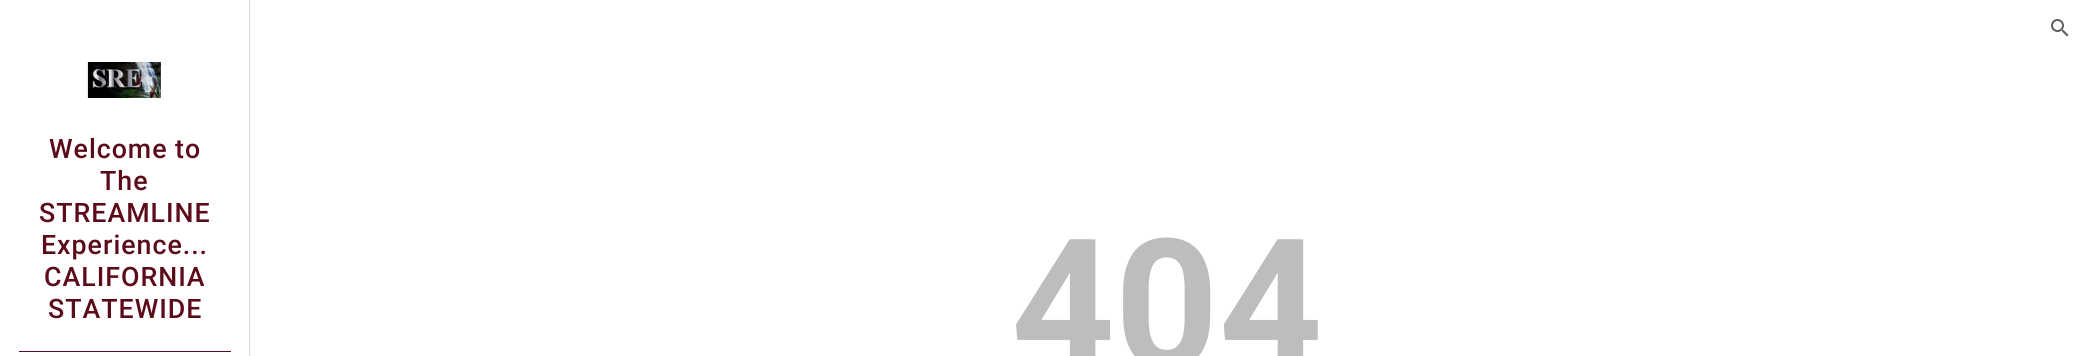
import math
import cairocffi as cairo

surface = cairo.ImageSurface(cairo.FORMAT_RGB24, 2084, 356)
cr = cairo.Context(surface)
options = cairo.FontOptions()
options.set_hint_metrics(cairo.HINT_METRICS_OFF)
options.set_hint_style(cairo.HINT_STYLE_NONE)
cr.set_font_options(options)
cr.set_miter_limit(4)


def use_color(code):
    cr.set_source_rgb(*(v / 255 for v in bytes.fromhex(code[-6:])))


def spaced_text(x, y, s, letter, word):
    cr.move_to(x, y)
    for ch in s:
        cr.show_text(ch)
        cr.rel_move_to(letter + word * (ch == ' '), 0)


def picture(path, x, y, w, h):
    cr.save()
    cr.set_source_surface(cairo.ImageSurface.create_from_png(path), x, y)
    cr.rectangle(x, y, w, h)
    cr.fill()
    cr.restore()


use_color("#ffffff")
cr.paint()
picture("img1.png", 2051, 19, 18, 18)
use_color("#d9d9d9")
cr.rectangle(249, 0, 1, 356)
cr.fill()
picture("img2.png", 87, 62, 74, 36)
cr.select_font_face("Roboto Medium")
cr.set_font_size(26.75)
use_color("#5b0b19")
spaced_text(49, 158, "Welcome to", 1, 0)
spaced_text(100, 190, "The", 1, 0)
spaced_text(39, 222, "STREAMLINE", 1, 0)
spaced_text(41, 254, "Experience...", 1, 0)
spaced_text(44, 286, "CALIFORNIA", 1, 0)
spaced_text(48, 318, "STATEWIDE", 1, 0)
cr.rectangle(19, 351, 212, 1)
cr.fill()
cr.select_font_face("Roboto", cairo.FONT_SLANT_NORMAL, cairo.FONT_WEIGHT_BOLD)
cr.set_font_size(181)
use_color("#bdbdbd")
cr.move_to(1011, 368)
cr.show_text("404")
surface.write_to_png("result.png")
